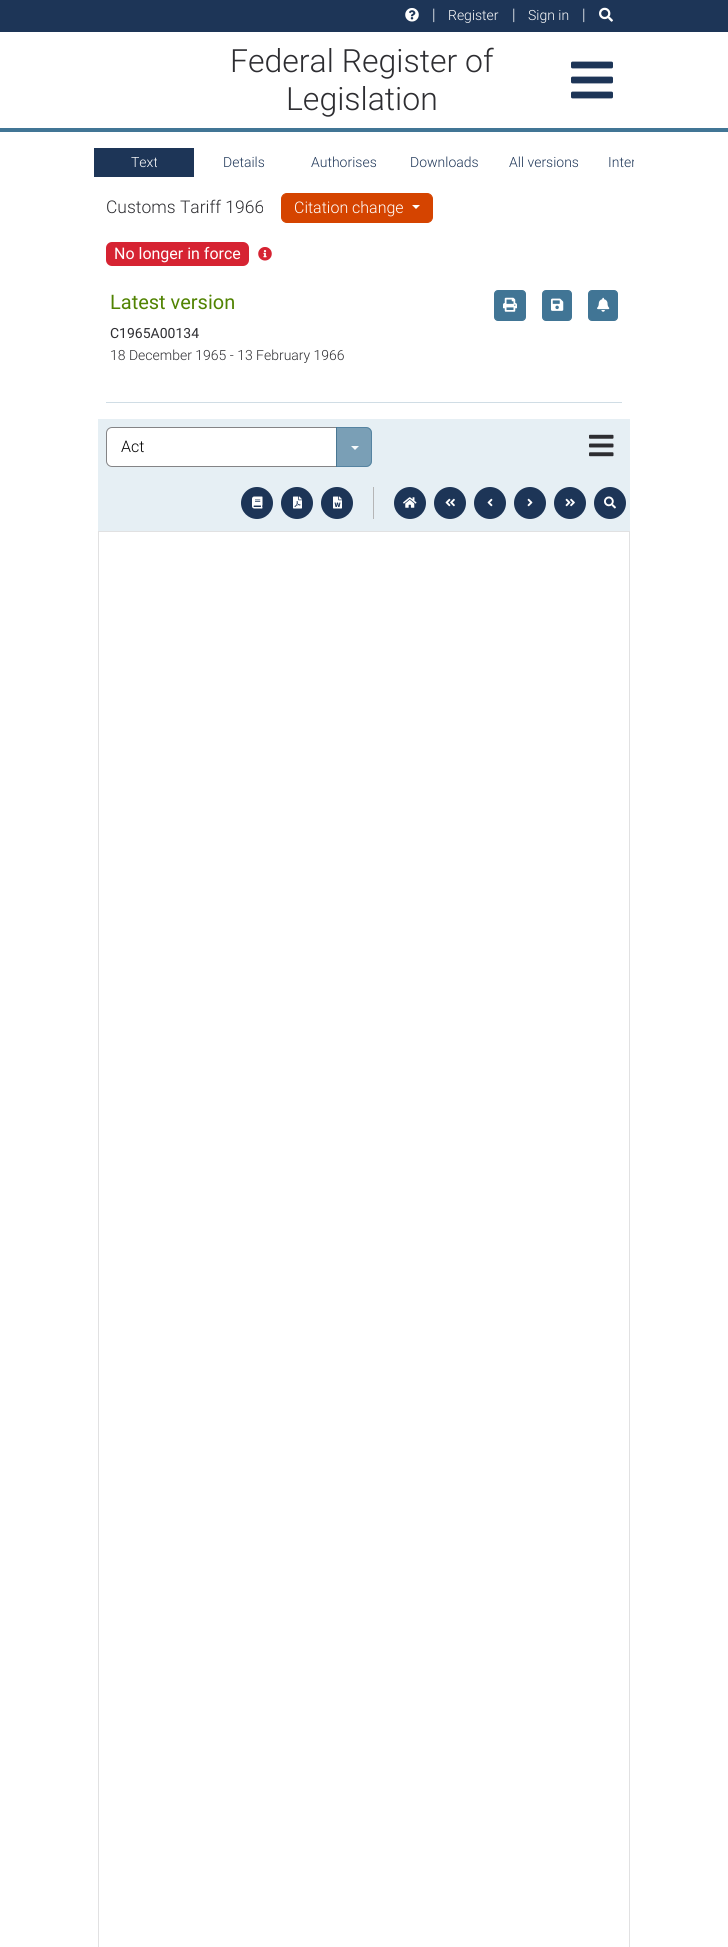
import math
import cairocffi as cairo

surface = cairo.ImageSurface(cairo.FORMAT_RGB24, 728, 1947)
cr = cairo.Context(surface)
options = cairo.FontOptions()
options.set_hint_metrics(cairo.HINT_METRICS_OFF)
options.set_hint_style(cairo.HINT_STYLE_NONE)
cr.set_font_options(options)
cr.set_miter_limit(4)


def use_color(code):
    cr.set_source_rgb(*(v / 255 for v in bytes.fromhex(code[-6:])))


def round_rect(x, y, w, h, r):
    cr.new_sub_path()
    for i, (u, v) in enumerate([(x + w - r, y + h - r), (x + r, y + h - r), (x + r, y + r), (x + w - r, y + r)]):
        cr.arc(u, v, r, i * math.pi / 2, (i + 1) * math.pi / 2)
    cr.close_path()


def picture(path, x, y, w, h):
    cr.save()
    cr.set_source_surface(cairo.ImageSurface.create_from_png(path), x, y)
    cr.rectangle(x, y, w, h)
    cr.fill()
    cr.restore()


use_color("#ffffff")
cr.paint()
use_color("#417595")
cr.rectangle(0, 128, 728, 4)
cr.fill()
use_color("#1d3557")
cr.rectangle(0, 0, 728, 32)
cr.fill()
picture("img1.png", 405, 8, 14, 14)
cr.select_font_face("Roboto Light")
cr.set_font_size(16)
use_color("#ffffff")
cr.move_to(432, 20)
cr.show_text("|")
cr.set_font_size(14)
cr.move_to(448, 20)
cr.show_text("Register")
cr.set_font_size(16)
cr.move_to(512, 20)
cr.show_text("|")
cr.set_font_size(14)
cr.move_to(528, 20)
cr.show_text("Sign in")
cr.set_font_size(16)
cr.move_to(582, 20)
cr.show_text("|")
picture("img2.png", 599, 7, 14, 15)
cr.set_font_size(32)
use_color("#2d2d31")
cr.move_to(230, 72)
cr.show_text("Federal Register of")
cr.move_to(286, 110)
cr.show_text("Legislation")
picture("img3.png", 571, 61, 42, 38)
use_color("#1d3557")
cr.rectangle(94, 148, 100, 29)
cr.fill()
cr.set_font_size(14)
use_color("#ffffff")
cr.move_to(131, 167)
cr.show_text("Text")
use_color("#1d3557")
cr.move_to(223, 167)
cr.show_text("Details")
cr.move_to(311, 167)
cr.show_text("Authorises")
cr.move_to(410, 167)
cr.show_text("Downloads")
cr.move_to(509, 167)
cr.show_text("All versions")
cr.save()
cr.rectangle(94, 148, 540, 29)
cr.clip()
cr.move_to(608, 167)
cr.show_text("Inter")
cr.restore()
cr.set_font_size(17.5)
use_color("#2d2d31")
cr.move_to(106, 213)
cr.show_text("Customs Tariff 1966")
use_color("#d54400")
round_rect(281.5, 193.5, 151, 29, 5.5)
cr.fill_preserve()
cr.set_line_width(1)
cr.stroke()
cr.set_font_size(16)
use_color("#ffffff")
cr.move_to(294, 213)
cr.show_text("Citation change")
cr.new_path()
cr.move_to(412, 205)
cr.line_to(420, 205)
cr.line_to(416, 209)
cr.close_path()
cr.fill()
use_color("#d62332")
round_rect(106, 242, 143, 24, 6)
cr.fill()
cr.select_font_face("Roboto")
use_color("#ffffff")
cr.move_to(114, 259)
cr.show_text("No longer in force")
picture("img4.png", 258, 247, 14, 14)
cr.set_font_size(20)
use_color("#518302")
cr.move_to(110, 309)
cr.show_text("Latest version")
use_color("#417595")
round_rect(494.5, 290.5, 31, 30, 3.5)
cr.fill_preserve()
cr.stroke()
picture("img5.png", 503, 297, 14, 15)
round_rect(542.5, 290.5, 29, 30, 3.5)
cr.fill_preserve()
cr.stroke()
picture("img6.png", 551, 298, 13, 13)
round_rect(588.5, 290.5, 29, 30, 3.5)
cr.fill_preserve()
cr.stroke()
picture("img7.png", 597, 297, 13, 15)
cr.set_font_size(14)
use_color("#2d2d31")
cr.move_to(110, 338)
cr.show_text("C1965A00134")
cr.select_font_face("Roboto Light")
cr.move_to(110, 360)
cr.show_text("18 December 1965 - 13 February 1966")
use_color("#d0dde5")
cr.rectangle(106, 402, 516, 1)
cr.fill()
use_color("#e6eff4")
cr.rectangle(98, 419, 532, 112)
cr.fill()
use_color("#ffffff")
cr.new_path()
cr.move_to(112, 427.5)
cr.line_to(336.5, 427.5)
cr.line_to(336.5, 466.5)
cr.line_to(112, 466.5)
cr.curve_to(109, 466.5, 106.5, 464, 106.5, 461)
cr.line_to(106.5, 433)
cr.curve_to(106.5, 430, 109, 427.5, 112, 427.5)
cr.close_path()
cr.fill_preserve()
use_color("#848486")
cr.stroke()
cr.set_font_size(16)
use_color("#000000")
cr.move_to(121, 452)
cr.show_text("Act")
cr.set_source_rgba(0.255, 0.459, 0.584, 0.65)
cr.new_path()
cr.move_to(336, 427)
cr.line_to(366, 427)
cr.curve_to(369.5, 427, 372, 429.5, 372, 433)
cr.line_to(372, 461)
cr.curve_to(372, 464.5, 369.5, 467, 366, 467)
cr.line_to(336, 467)
cr.close_path()
cr.fill()
cr.new_path()
cr.move_to(336.5, 427.5)
cr.line_to(366, 427.5)
cr.curve_to(369, 427.5, 371.5, 430, 371.5, 433)
cr.line_to(371.5, 461)
cr.curve_to(371.5, 464, 369, 466.5, 366, 466.5)
cr.line_to(336.5, 466.5)
cr.close_path()
cr.stroke()
use_color("#f6f9fb")
cr.new_path()
cr.move_to(351, 446)
cr.line_to(359, 446)
cr.line_to(355, 450)
cr.close_path()
cr.fill()
picture("img8.png", 589, 434, 25, 23)
use_color("#1d3557")
cr.arc(257, 503, 16, 0, 2 * math.pi)
cr.fill()
picture("img9.png", 252, 496, 11, 13)
cr.arc(297, 503, 16, 0, 2 * math.pi)
cr.fill()
picture("img10.png", 293, 496, 9, 13)
cr.arc(337, 503, 16, 0, 2 * math.pi)
cr.fill()
picture("img11.png", 333, 496, 9, 13)
use_color("#b5b5b6")
cr.rectangle(373, 487, 1, 32)
cr.fill()
use_color("#1d3557")
cr.arc(410, 503, 16, 0, 2 * math.pi)
cr.fill()
picture("img12.png", 403, 497, 14, 11)
cr.arc(450, 503, 16, 0, 2 * math.pi)
cr.fill()
picture("img13.png", 445, 498, 10, 9)
cr.arc(490, 503, 16, 0, 2 * math.pi)
cr.fill()
picture("img14.png", 487, 498, 6, 9)
cr.arc(530, 503, 16, 0, 2 * math.pi)
cr.fill()
picture("img15.png", 527, 498, 6, 9)
cr.arc(570, 503, 16, 0, 2 * math.pi)
cr.fill()
picture("img16.png", 565, 498, 10, 9)
cr.arc(610, 503, 16, 0, 2 * math.pi)
cr.fill()
picture("img17.png", 604, 496, 12, 13)
cr.rectangle(98.5, 531.5, 531, 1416)
use_color("#e1e1e2")
cr.stroke()
surface.write_to_png("result.png")
